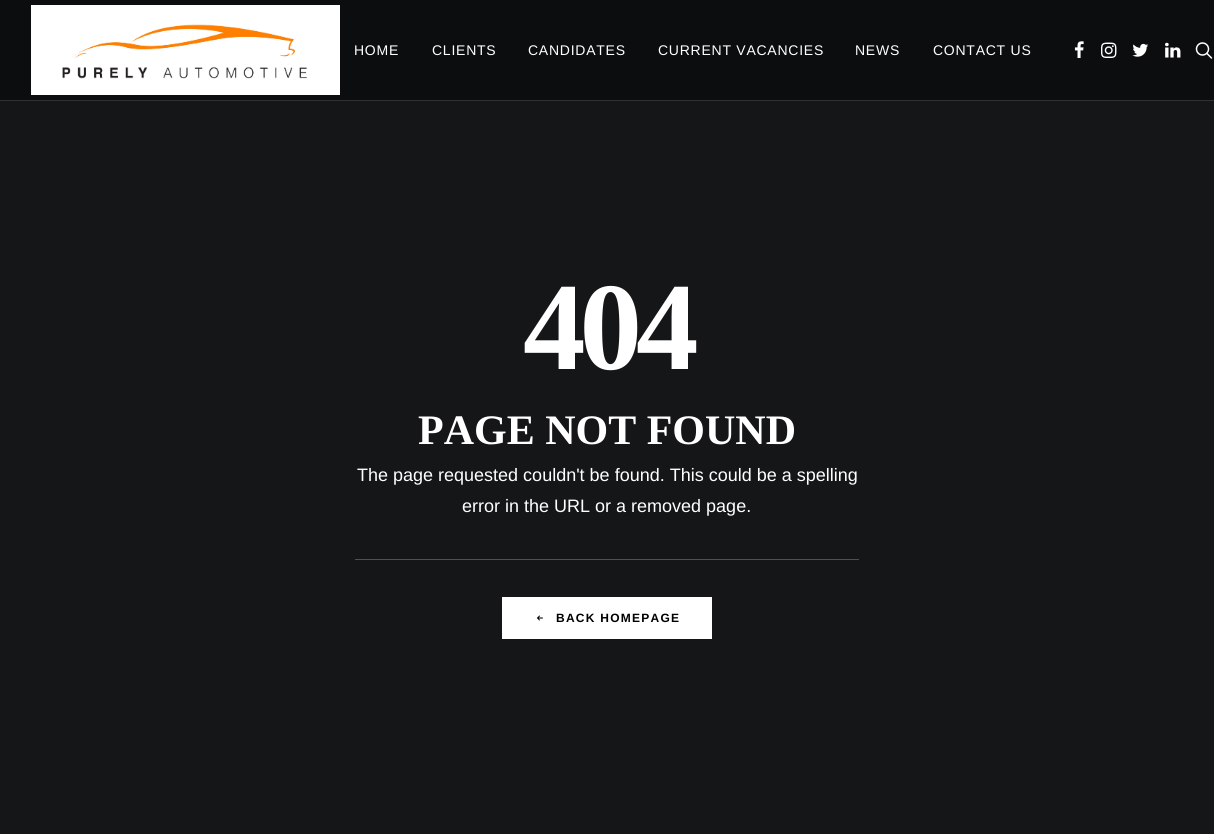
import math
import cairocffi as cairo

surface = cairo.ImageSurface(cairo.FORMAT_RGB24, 1214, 834)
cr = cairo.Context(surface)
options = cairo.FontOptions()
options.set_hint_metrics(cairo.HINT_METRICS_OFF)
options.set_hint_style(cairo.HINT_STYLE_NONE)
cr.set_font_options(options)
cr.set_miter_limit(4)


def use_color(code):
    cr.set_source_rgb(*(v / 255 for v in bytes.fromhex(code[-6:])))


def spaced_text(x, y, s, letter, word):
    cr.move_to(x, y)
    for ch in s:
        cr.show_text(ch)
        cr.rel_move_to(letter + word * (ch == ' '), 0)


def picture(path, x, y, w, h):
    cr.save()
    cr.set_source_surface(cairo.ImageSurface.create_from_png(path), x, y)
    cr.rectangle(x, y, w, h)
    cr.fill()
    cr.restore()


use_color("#141618")
cr.paint()
use_color("#0c0d0e")
cr.rectangle(0, 0, 1214, 100)
cr.fill()
use_color("#303132")
cr.rectangle(0, 100, 1214, 1)
cr.fill()
picture("img1.png", 31, 5, 309, 90)
cr.select_font_face("Liberation Sans")
cr.set_font_size(14)
use_color("#ffffff")
spaced_text(354, 55, "HOME", 0.75, 0)
spaced_text(432, 55, "CLIENTS", 0.75, 0)
spaced_text(528, 55, "CANDIDATES", 0.75, 0)
spaced_text(658, 55, "CURRENT VACANCIES", 0.75, 0)
spaced_text(855, 55, "NEWS", 0.75, 0)
spaced_text(933, 55, "CONTACT US", 0.75, 0)
picture("img2.png", 1074, 41, 10, 17)
picture("img3.png", 1101, 42, 16, 16)
picture("img4.png", 1132, 43, 17, 14)
picture("img5.png", 1165, 42, 16, 16)
picture("img6.png", 1195, 42, 18, 17)
cr.select_font_face("Liberation Serif", cairo.FONT_SLANT_NORMAL, cairo.FONT_WEIGHT_BOLD)
cr.set_font_size(125)
spaced_text(523, 369, "404", -6, 0)
cr.set_font_size(42)
cr.move_to(418, 444)
cr.show_text("PAGE NOT FOUND")
cr.select_font_face("Liberation Sans")
cr.set_font_size(18)
cr.move_to(357, 481)
cr.show_text("The page requested couldn't be found. This could be a spelling")
cr.move_to(462, 512)
cr.show_text("error in the URL or a removed page.")
use_color("#4f5052")
cr.rectangle(355, 559, 504, 1)
cr.fill()
use_color("#ffffff")
cr.rectangle(502, 597, 210, 42)
cr.fill()
picture("img7.png", 536, 615, 7, 6)
cr.select_font_face("Liberation Sans", cairo.FONT_SLANT_NORMAL, cairo.FONT_WEIGHT_BOLD)
cr.set_font_size(12)
use_color("#000000")
spaced_text(556, 622, "BACK HOMEPAGE", 1.25, 0)
surface.write_to_png("result.png")
